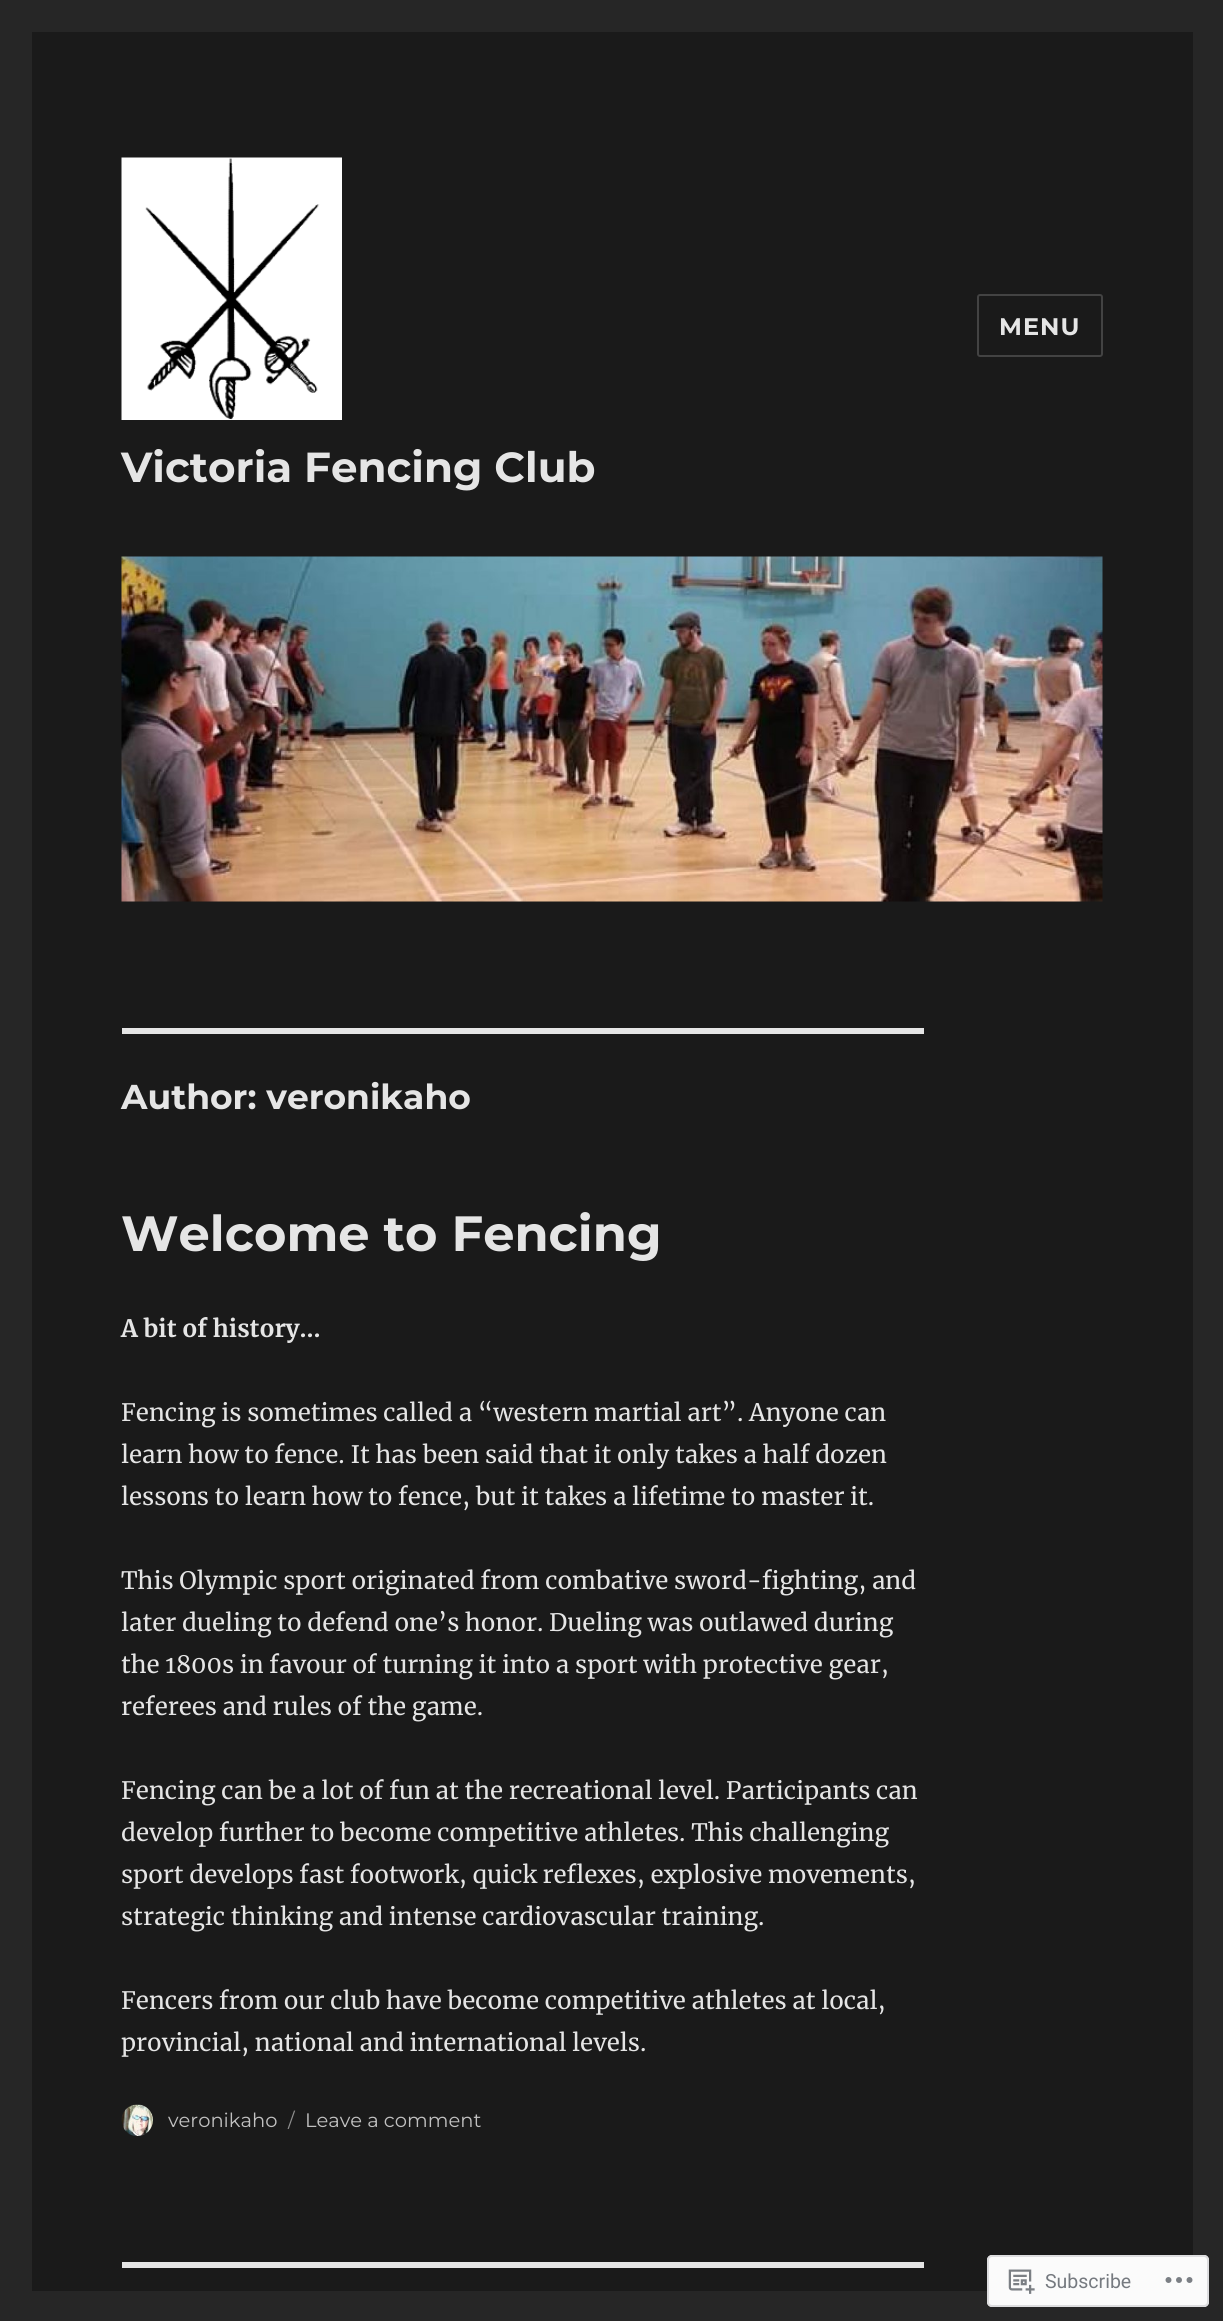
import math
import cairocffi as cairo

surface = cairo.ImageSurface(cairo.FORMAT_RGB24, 1223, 2321)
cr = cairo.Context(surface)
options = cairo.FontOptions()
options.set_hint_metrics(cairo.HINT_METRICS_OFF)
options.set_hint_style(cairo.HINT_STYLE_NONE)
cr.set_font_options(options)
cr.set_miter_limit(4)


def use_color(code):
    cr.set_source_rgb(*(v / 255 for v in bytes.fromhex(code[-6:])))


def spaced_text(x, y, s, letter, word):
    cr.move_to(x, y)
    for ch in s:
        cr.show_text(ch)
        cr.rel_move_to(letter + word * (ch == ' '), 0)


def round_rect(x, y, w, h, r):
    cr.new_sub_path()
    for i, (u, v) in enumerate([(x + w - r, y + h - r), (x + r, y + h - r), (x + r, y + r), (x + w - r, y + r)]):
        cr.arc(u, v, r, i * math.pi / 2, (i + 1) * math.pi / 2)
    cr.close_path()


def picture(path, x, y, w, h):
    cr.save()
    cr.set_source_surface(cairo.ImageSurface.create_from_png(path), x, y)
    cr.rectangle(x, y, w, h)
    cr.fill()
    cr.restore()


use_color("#262626")
cr.paint()
use_color("#1a1a1a")
cr.rectangle(32, 32, 1161, 2259)
cr.fill()
round_rect(978, 295, 124, 61, 2)
use_color("#434343")
cr.stroke()
cr.select_font_face("Montserrat Thin")
cr.set_font_size(24)
use_color("#e5e5e5")
spaced_text(999, 335, "MENU", 1, 0)
picture("img1.png", 121, 157, 221, 263)
cr.set_font_size(42)
cr.move_to(121, 482)
cr.show_text("Victoria Fencing Club")
picture("img2.png", 121, 556, 982, 346)
cr.rectangle(122, 1028, 802, 6)
cr.fill()
cr.set_font_size(34.5)
cr.move_to(121, 1109)
cr.show_text("Author: veronikaho")
cr.set_font_size(49.5)
cr.move_to(121, 1251)
cr.show_text("Welcome to Fencing")
cr.select_font_face("Merriweather", cairo.FONT_SLANT_NORMAL, cairo.FONT_WEIGHT_BOLD)
cr.set_font_size(24)
cr.move_to(121, 1337)
cr.show_text("A bit of history…")
cr.select_font_face("Merriweather")
cr.move_to(121, 1421)
cr.show_text("Fencing is sometimes called a “western martial art”. Anyone can")
cr.move_to(121, 1463)
cr.show_text("learn how to fence. It has been said that it only takes a half dozen")
cr.move_to(121, 1505)
cr.show_text("lessons to learn how to fence, but it takes a lifetime to master it.")
cr.move_to(121, 1589)
cr.show_text("This Olympic sport originated from combative sword-fighting, and")
cr.move_to(121, 1631)
cr.show_text("later dueling to defend one’s honor. Dueling was outlawed during")
cr.move_to(121, 1673)
cr.show_text("the 1800s in favour of turning it into a sport with protective gear,")
cr.move_to(121, 1715)
cr.show_text("referees and rules of the game.")
cr.move_to(121, 1799)
cr.show_text("Fencing can be a lot of fun at the recreational level. Participants can")
cr.move_to(121, 1841)
cr.show_text("develop further to become competitive athletes. This challenging")
cr.move_to(121, 1883)
cr.show_text("sport develops fast footwork, quick reflexes, explosive movements,")
cr.move_to(121, 1925)
cr.show_text("strategic thinking and intense cardiovascular training.")
cr.move_to(121, 2009)
cr.show_text("Fencers from our club have become competitive athletes at local,")
cr.move_to(121, 2051)
cr.show_text("provincial, national and international levels.")
picture("img3.png", 121, 2104, 32, 32)
cr.select_font_face("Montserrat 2 Thin")
cr.set_font_size(19.5)
use_color("#c1c1c1")
cr.move_to(168, 2127)
cr.show_text("veronikaho")
use_color("#8f8f8f")
cr.move_to(288, 2127)
cr.show_text("/")
use_color("#c1c1c1")
cr.move_to(305, 2127)
cr.show_text("Leave a comment")
use_color("#e5e5e5")
cr.rectangle(122, 2262, 802, 6)
cr.fill()
cr.set_source_rgba(1, 1, 1, 0.98)
round_rect(987, 2255, 222, 52, 5)
cr.fill()
round_rect(988, 2256, 220, 50, 4)
cr.set_source_rgba(0.863, 0.863, 0.871, 0.98)
cr.stroke()
picture("img4.png", 1008, 2269, 27, 25)
cr.select_font_face("Roboto")
use_color("#767a80")
cr.move_to(1045, 2288)
cr.show_text("Subscribe")
picture("img5.png", 1165, 2277, 28, 6)
surface.write_to_png("result.png")
